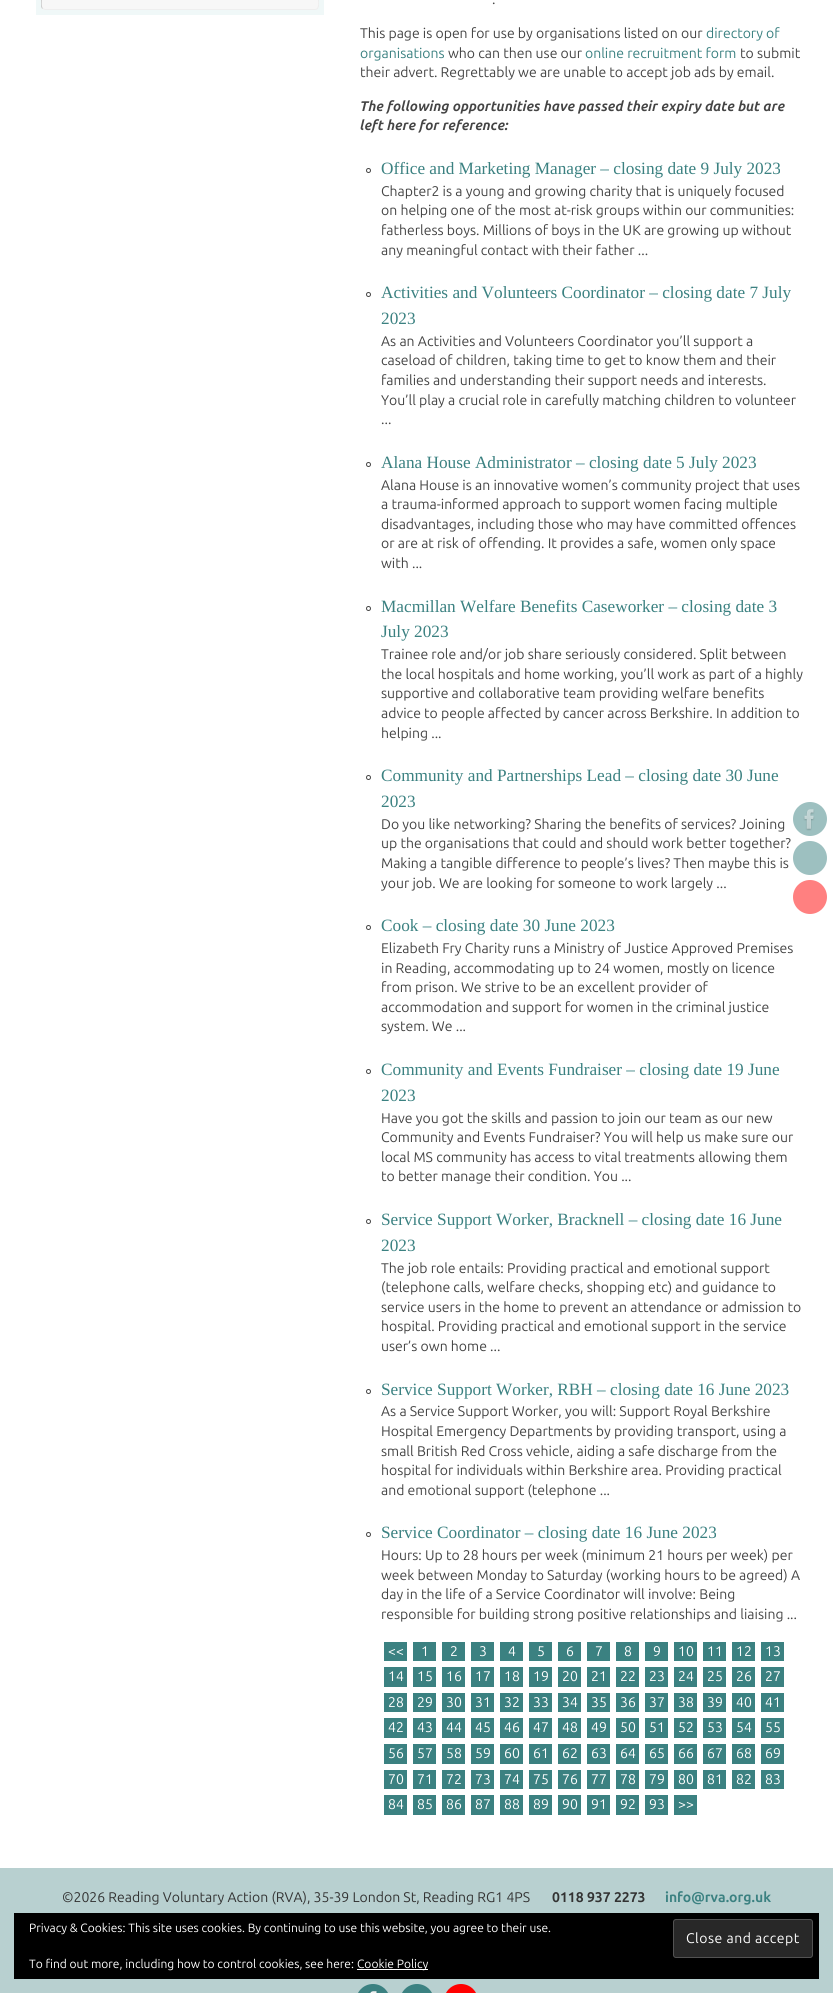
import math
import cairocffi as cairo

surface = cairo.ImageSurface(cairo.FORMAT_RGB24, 833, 1993)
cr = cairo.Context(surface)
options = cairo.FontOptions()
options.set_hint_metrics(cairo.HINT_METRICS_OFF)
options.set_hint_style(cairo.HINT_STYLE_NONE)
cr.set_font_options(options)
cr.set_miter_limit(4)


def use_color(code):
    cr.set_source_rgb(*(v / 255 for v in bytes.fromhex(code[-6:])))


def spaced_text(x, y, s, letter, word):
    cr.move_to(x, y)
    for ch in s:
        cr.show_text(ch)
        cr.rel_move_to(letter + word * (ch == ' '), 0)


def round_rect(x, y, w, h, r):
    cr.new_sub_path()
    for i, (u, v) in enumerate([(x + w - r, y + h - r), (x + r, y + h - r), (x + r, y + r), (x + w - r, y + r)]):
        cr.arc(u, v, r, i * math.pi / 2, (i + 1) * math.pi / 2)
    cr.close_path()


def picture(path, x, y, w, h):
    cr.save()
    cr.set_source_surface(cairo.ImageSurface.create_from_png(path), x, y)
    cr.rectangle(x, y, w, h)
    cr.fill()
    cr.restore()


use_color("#ffffff")
cr.paint()
use_color("#f0f8f8")
cr.rectangle(36, 0, 288, 15)
cr.fill()
use_color("#f7f7f7")
round_rect(41, -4, 278, 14, 4)
cr.fill()
cr.save()
cr.rectangle(41, 0, 278, 10)
cr.clip()
cr.new_path()
cr.move_to(317.5, -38.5)
cr.curve_to(319.5, -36.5, 318.5, -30.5, 318.5, -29)
cr.line_to(318.5, -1)
cr.curve_to(318.5, 1.5, 320, 9.5, 315, 9.5)
cr.line_to(45, 9.5)
cr.line_to(42.5, 8.5)
use_color("#eeeeee")
cr.set_line_width(1)
cr.stroke()
cr.new_path()
cr.move_to(42.5, 8.5)
cr.curve_to(40.5, 6.5, 41.5, 0.5, 41.5, -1)
cr.line_to(41.5, -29)
cr.curve_to(41.5, -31.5, 40, -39.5, 45, -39.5)
cr.line_to(315, -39.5)
cr.line_to(317.5, -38.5)
use_color("#cccccc")
cr.stroke()
cr.restore()
cr.select_font_face("Ubuntu")
cr.set_font_size(14)
use_color("#444444")
cr.move_to(492, 4)
cr.show_text(".")
cr.move_to(360, 38)
cr.show_text("This page is open for use by organisations listed on our")
use_color("#3b8181")
cr.move_to(706, 38)
cr.show_text("directory of")
cr.move_to(360, 58)
cr.show_text("organisations")
use_color("#444444")
cr.move_to(448, 58)
cr.show_text("who can then use our")
use_color("#3b8181")
cr.move_to(585, 58)
cr.show_text("online recruitment form")
use_color("#444444")
cr.move_to(740, 58)
cr.show_text("to submit")
cr.move_to(360, 77)
cr.show_text("their advert. Regrettably we are unable to accept job ads by email.")
cr.select_font_face("Ubuntu", cairo.FONT_SLANT_ITALIC, cairo.FONT_WEIGHT_BOLD)
cr.move_to(360, 111)
cr.show_text("The following opportunities have passed their expiry date but are")
cr.move_to(360, 130)
cr.show_text("left here for reference:")
cr.new_path()
cr.arc(368.5, 170.5, 2, 0, 2 * math.pi)
cr.set_line_width(1)
cr.stroke()
cr.select_font_face("Liberation Serif")
cr.set_font_size(17.25)
use_color("#3b8181")
cr.move_to(381, 174)
cr.show_text("Office and Marketing Manager – closing date 9 July 2023")
cr.select_font_face("Ubuntu")
cr.set_font_size(14)
use_color("#444444")
cr.move_to(381, 196)
cr.show_text("Chapter2 is a young and growing charity that is uniquely focused")
cr.move_to(381, 215)
cr.show_text("on helping one of the most at-risk groups within our communities:")
cr.move_to(381, 235)
cr.show_text("fatherless boys. Millions of boys in the UK are growing up without")
cr.move_to(381, 255)
cr.show_text("any meaningful contact with their father ...")
cr.new_path()
cr.arc(368.5, 294.5, 2, 0, 2 * math.pi)
cr.stroke()
cr.select_font_face("Liberation Serif")
cr.set_font_size(17.25)
use_color("#3b8181")
cr.move_to(381, 298)
cr.show_text("Activities and Volunteers Coordinator – closing date 7 July")
cr.move_to(381, 324)
cr.show_text("2023")
cr.select_font_face("Ubuntu")
cr.set_font_size(14)
use_color("#444444")
cr.move_to(381, 346)
cr.show_text("As an Activities and Volunteers Coordinator you’ll support a")
cr.move_to(381, 365)
cr.show_text("caseload of children, taking time to get to know them and their")
cr.move_to(381, 385)
cr.show_text("families and understanding their support needs and interests.")
cr.move_to(381, 405)
cr.show_text("You’ll play a crucial role in carefully matching children to volunteer")
cr.move_to(381, 424)
cr.show_text("...")
cr.new_path()
cr.arc(368.5, 464.5, 2, 0, 2 * math.pi)
cr.stroke()
cr.select_font_face("Liberation Serif")
cr.set_font_size(17.25)
use_color("#3b8181")
cr.move_to(381, 468)
cr.show_text("Alana House Administrator – closing date 5 July 2023")
cr.select_font_face("Ubuntu")
cr.set_font_size(14)
use_color("#444444")
cr.move_to(381, 490)
cr.show_text("Alana House is an innovative women’s community project that uses")
cr.move_to(381, 509)
cr.show_text("a trauma-informed approach to support women facing multiple")
cr.move_to(381, 529)
cr.show_text("disadvantages, including those who may have committed offences")
cr.move_to(381, 548)
cr.show_text("or are at risk of offending. It provides a safe, women only space")
cr.move_to(381, 568)
cr.show_text("with ...")
cr.new_path()
cr.arc(368.5, 608.5, 2, 0, 2 * math.pi)
cr.stroke()
cr.select_font_face("Liberation Serif")
cr.set_font_size(17.25)
use_color("#3b8181")
cr.move_to(381, 612)
cr.show_text("Macmillan Welfare Benefits Caseworker – closing date 3")
cr.move_to(381, 637)
cr.show_text("July 2023")
cr.select_font_face("Ubuntu")
cr.set_font_size(14)
use_color("#444444")
cr.move_to(381, 659)
cr.show_text("Trainee role and/or job share seriously considered. Split between")
cr.move_to(381, 679)
cr.show_text("the local hospitals and home working, you’ll work as part of a highly")
cr.move_to(381, 698)
cr.show_text("supportive and collaborative team providing welfare benefits")
cr.move_to(381, 718)
cr.show_text("advice to people affected by cancer across Berkshire. In addition to")
cr.move_to(381, 738)
cr.show_text("helping ...")
cr.new_path()
cr.arc(368.5, 777.5, 2, 0, 2 * math.pi)
cr.stroke()
cr.select_font_face("Liberation Serif")
cr.set_font_size(17.25)
use_color("#3b8181")
cr.move_to(381, 781)
cr.show_text("Community and Partnerships Lead – closing date 30 June")
cr.move_to(381, 807)
cr.show_text("2023")
cr.select_font_face("Ubuntu")
cr.set_font_size(14)
use_color("#444444")
cr.move_to(381, 829)
cr.show_text("Do you like networking? Sharing the benefits of services? Joining")
cr.move_to(381, 848)
cr.show_text("up the organisations that could and should work better together?")
cr.move_to(381, 868)
cr.show_text("Making a tangible difference to people’s lives? Then maybe this is")
cr.move_to(381, 888)
cr.show_text("your job. We are looking for someone to work largely ...")
cr.new_path()
cr.arc(368.5, 927.5, 2, 0, 2 * math.pi)
cr.stroke()
cr.select_font_face("Liberation Serif")
cr.set_font_size(17.25)
use_color("#3b8181")
cr.move_to(381, 931)
cr.show_text("Cook – closing date 30 June 2023")
cr.select_font_face("Ubuntu")
cr.set_font_size(14)
use_color("#444444")
cr.move_to(381, 953)
cr.show_text("Elizabeth Fry Charity runs a Ministry of Justice Approved Premises")
cr.move_to(381, 973)
cr.show_text("in Reading, accommodating up to 24 women, mostly on licence")
cr.move_to(381, 992)
cr.show_text("from prison. We strive to be an excellent provider of")
cr.move_to(381, 1012)
cr.show_text("accommodation and support for women in the criminal justice")
cr.move_to(381, 1031)
cr.show_text("system. We ...")
cr.new_path()
cr.arc(368.5, 1071.5, 2, 0, 2 * math.pi)
cr.stroke()
cr.select_font_face("Liberation Serif")
cr.set_font_size(17.25)
use_color("#3b8181")
cr.move_to(381, 1075)
cr.show_text("Community and Events Fundraiser – closing date 19 June")
cr.move_to(381, 1101)
cr.show_text("2023")
cr.select_font_face("Ubuntu")
cr.set_font_size(14)
use_color("#444444")
cr.move_to(381, 1123)
cr.show_text("Have you got the skills and passion to join our team as our new")
cr.move_to(381, 1142)
cr.show_text("Community and Events Fundraiser? You will help us make sure our")
cr.move_to(381, 1162)
cr.show_text("local MS community has access to vital treatments allowing them")
cr.move_to(381, 1181)
cr.show_text("to better manage their condition. You ...")
cr.new_path()
cr.arc(368.5, 1221.5, 2, 0, 2 * math.pi)
cr.stroke()
cr.select_font_face("Liberation Serif")
cr.set_font_size(17.25)
use_color("#3b8181")
cr.move_to(381, 1225)
cr.show_text("Service Support Worker, Bracknell – closing date 16 June")
cr.move_to(381, 1251)
cr.show_text("2023")
cr.select_font_face("Ubuntu")
cr.set_font_size(14)
use_color("#444444")
cr.move_to(381, 1273)
cr.show_text("The job role entails: Providing practical and emotional support")
cr.move_to(381, 1292)
cr.show_text("(telephone calls, welfare checks, shopping etc) and guidance to")
cr.move_to(381, 1312)
cr.show_text("service users in the home to prevent an attendance or admission to")
cr.move_to(381, 1331)
cr.show_text("hospital. Providing practical and emotional support in the service")
cr.move_to(381, 1351)
cr.show_text("user’s own home ...")
cr.new_path()
cr.arc(368.5, 1391.5, 2, 0, 2 * math.pi)
cr.stroke()
cr.select_font_face("Liberation Serif")
cr.set_font_size(17.25)
use_color("#3b8181")
cr.move_to(381, 1395)
cr.show_text("Service Support Worker, RBH – closing date 16 June 2023")
cr.select_font_face("Ubuntu")
cr.set_font_size(14)
use_color("#444444")
cr.move_to(381, 1416)
cr.show_text("As a Service Support Worker, you will: Support Royal Berkshire")
cr.move_to(381, 1436)
cr.show_text("Hospital Emergency Departments by providing transport, using a")
cr.move_to(381, 1456)
cr.show_text("small British Red Cross vehicle, aiding a safe discharge from the")
cr.move_to(381, 1475)
cr.show_text("hospital for individuals within Berkshire area. Providing practical")
cr.move_to(381, 1495)
cr.show_text("and emotional support (telephone ...")
cr.new_path()
cr.arc(368.5, 1534.5, 2, 0, 2 * math.pi)
cr.stroke()
cr.select_font_face("Liberation Serif")
cr.set_font_size(17.25)
use_color("#3b8181")
cr.move_to(381, 1538)
cr.show_text("Service Coordinator – closing date 16 June 2023")
cr.select_font_face("Ubuntu")
cr.set_font_size(14)
use_color("#444444")
cr.move_to(381, 1560)
cr.show_text("Hours: Up to 28 hours per week (minimum 21 hours per week) per")
cr.move_to(381, 1580)
cr.show_text("week between Monday to Saturday (working hours to be agreed) A")
cr.move_to(381, 1599)
cr.show_text("day in the life of a Service Coordinator will involve: Being")
cr.move_to(381, 1619)
cr.show_text("responsible for building strong positive relationships and liaising ...")
use_color("#3b8181")
cr.rectangle(384, 1642, 23, 19)
cr.fill()
use_color("#ffffff")
cr.move_to(388, 1656)
cr.show_text("<<")
use_color("#3b8181")
cr.rectangle(413, 1642, 23, 19)
cr.fill()
use_color("#ffffff")
cr.move_to(421, 1656)
cr.show_text("1")
use_color("#3b8181")
cr.rectangle(442, 1642, 23, 19)
cr.fill()
use_color("#ffffff")
cr.move_to(450, 1656)
cr.show_text("2")
use_color("#3b8181")
cr.rectangle(471, 1642, 23, 19)
cr.fill()
use_color("#ffffff")
cr.move_to(479, 1656)
cr.show_text("3")
use_color("#3b8181")
cr.rectangle(500, 1642, 23, 19)
cr.fill()
use_color("#ffffff")
cr.move_to(508, 1656)
cr.show_text("4")
use_color("#3b8181")
cr.rectangle(529, 1642, 23, 19)
cr.fill()
use_color("#ffffff")
cr.move_to(537, 1656)
cr.show_text("5")
use_color("#3b8181")
cr.rectangle(558, 1642, 23, 19)
cr.fill()
use_color("#ffffff")
cr.move_to(566, 1656)
cr.show_text("6")
use_color("#3b8181")
cr.rectangle(587, 1642, 23, 19)
cr.fill()
use_color("#ffffff")
cr.move_to(595, 1656)
cr.show_text("7")
use_color("#3b8181")
cr.rectangle(616, 1642, 23, 19)
cr.fill()
use_color("#ffffff")
cr.move_to(624, 1656)
cr.show_text("8")
use_color("#3b8181")
cr.rectangle(645, 1642, 23, 19)
cr.fill()
use_color("#ffffff")
cr.move_to(653, 1656)
cr.show_text("9")
use_color("#3b8181")
cr.rectangle(674, 1642, 23, 19)
cr.fill()
use_color("#ffffff")
cr.move_to(678, 1656)
cr.show_text("10")
use_color("#3b8181")
cr.rectangle(703, 1642, 23, 19)
cr.fill()
use_color("#ffffff")
cr.move_to(707, 1656)
cr.show_text("11")
use_color("#3b8181")
cr.rectangle(732, 1642, 23, 19)
cr.fill()
use_color("#ffffff")
cr.move_to(736, 1656)
cr.show_text("12")
use_color("#3b8181")
cr.rectangle(761, 1642, 23, 19)
cr.fill()
use_color("#ffffff")
cr.move_to(765, 1656)
cr.show_text("13")
use_color("#3b8181")
cr.rectangle(384, 1667, 23, 20)
cr.fill()
use_color("#ffffff")
cr.move_to(388, 1681)
cr.show_text("14")
use_color("#3b8181")
cr.rectangle(413, 1667, 23, 20)
cr.fill()
use_color("#ffffff")
cr.move_to(417, 1681)
cr.show_text("15")
use_color("#3b8181")
cr.rectangle(442, 1667, 23, 20)
cr.fill()
use_color("#ffffff")
cr.move_to(446, 1681)
cr.show_text("16")
use_color("#3b8181")
cr.rectangle(471, 1667, 23, 20)
cr.fill()
use_color("#ffffff")
cr.move_to(475, 1681)
cr.show_text("17")
use_color("#3b8181")
cr.rectangle(500, 1667, 23, 20)
cr.fill()
use_color("#ffffff")
cr.move_to(504, 1681)
cr.show_text("18")
use_color("#3b8181")
cr.rectangle(529, 1667, 23, 20)
cr.fill()
use_color("#ffffff")
cr.move_to(533, 1681)
cr.show_text("19")
use_color("#3b8181")
cr.rectangle(558, 1667, 23, 20)
cr.fill()
use_color("#ffffff")
cr.move_to(562, 1681)
cr.show_text("20")
use_color("#3b8181")
cr.rectangle(587, 1667, 23, 20)
cr.fill()
use_color("#ffffff")
cr.move_to(591, 1681)
cr.show_text("21")
use_color("#3b8181")
cr.rectangle(616, 1667, 23, 20)
cr.fill()
use_color("#ffffff")
cr.move_to(620, 1681)
cr.show_text("22")
use_color("#3b8181")
cr.rectangle(645, 1667, 23, 20)
cr.fill()
use_color("#ffffff")
cr.move_to(649, 1681)
cr.show_text("23")
use_color("#3b8181")
cr.rectangle(674, 1667, 23, 20)
cr.fill()
use_color("#ffffff")
cr.move_to(678, 1681)
cr.show_text("24")
use_color("#3b8181")
cr.rectangle(703, 1667, 23, 20)
cr.fill()
use_color("#ffffff")
cr.move_to(707, 1681)
cr.show_text("25")
use_color("#3b8181")
cr.rectangle(732, 1667, 23, 20)
cr.fill()
use_color("#ffffff")
cr.move_to(736, 1681)
cr.show_text("26")
use_color("#3b8181")
cr.rectangle(761, 1667, 23, 20)
cr.fill()
use_color("#ffffff")
cr.move_to(765, 1681)
cr.show_text("27")
use_color("#3b8181")
cr.rectangle(384, 1693, 23, 19)
cr.fill()
use_color("#ffffff")
cr.move_to(388, 1707)
cr.show_text("28")
use_color("#3b8181")
cr.rectangle(413, 1693, 23, 19)
cr.fill()
use_color("#ffffff")
cr.move_to(417, 1707)
cr.show_text("29")
use_color("#3b8181")
cr.rectangle(442, 1693, 23, 19)
cr.fill()
use_color("#ffffff")
cr.move_to(446, 1707)
cr.show_text("30")
use_color("#3b8181")
cr.rectangle(471, 1693, 23, 19)
cr.fill()
use_color("#ffffff")
cr.move_to(475, 1707)
cr.show_text("31")
use_color("#3b8181")
cr.rectangle(500, 1693, 23, 19)
cr.fill()
use_color("#ffffff")
cr.move_to(504, 1707)
cr.show_text("32")
use_color("#3b8181")
cr.rectangle(529, 1693, 23, 19)
cr.fill()
use_color("#ffffff")
cr.move_to(533, 1707)
cr.show_text("33")
use_color("#3b8181")
cr.rectangle(558, 1693, 23, 19)
cr.fill()
use_color("#ffffff")
cr.move_to(562, 1707)
cr.show_text("34")
use_color("#3b8181")
cr.rectangle(587, 1693, 23, 19)
cr.fill()
use_color("#ffffff")
cr.move_to(591, 1707)
cr.show_text("35")
use_color("#3b8181")
cr.rectangle(616, 1693, 23, 19)
cr.fill()
use_color("#ffffff")
cr.move_to(620, 1707)
cr.show_text("36")
use_color("#3b8181")
cr.rectangle(645, 1693, 23, 19)
cr.fill()
use_color("#ffffff")
cr.move_to(649, 1707)
cr.show_text("37")
use_color("#3b8181")
cr.rectangle(674, 1693, 23, 19)
cr.fill()
use_color("#ffffff")
cr.move_to(678, 1707)
cr.show_text("38")
use_color("#3b8181")
cr.rectangle(703, 1693, 23, 19)
cr.fill()
use_color("#ffffff")
cr.move_to(707, 1707)
cr.show_text("39")
use_color("#3b8181")
cr.rectangle(732, 1693, 23, 19)
cr.fill()
use_color("#ffffff")
cr.move_to(736, 1707)
cr.show_text("40")
use_color("#3b8181")
cr.rectangle(761, 1693, 23, 19)
cr.fill()
use_color("#ffffff")
cr.move_to(765, 1707)
cr.show_text("41")
use_color("#3b8181")
cr.rectangle(384, 1718, 23, 20)
cr.fill()
use_color("#ffffff")
cr.move_to(388, 1732)
cr.show_text("42")
use_color("#3b8181")
cr.rectangle(413, 1718, 23, 20)
cr.fill()
use_color("#ffffff")
cr.move_to(417, 1732)
cr.show_text("43")
use_color("#3b8181")
cr.rectangle(442, 1718, 23, 20)
cr.fill()
use_color("#ffffff")
cr.move_to(446, 1732)
cr.show_text("44")
use_color("#3b8181")
cr.rectangle(471, 1718, 23, 20)
cr.fill()
use_color("#ffffff")
cr.move_to(475, 1732)
cr.show_text("45")
use_color("#3b8181")
cr.rectangle(500, 1718, 23, 20)
cr.fill()
use_color("#ffffff")
cr.move_to(504, 1732)
cr.show_text("46")
use_color("#3b8181")
cr.rectangle(529, 1718, 23, 20)
cr.fill()
use_color("#ffffff")
cr.move_to(533, 1732)
cr.show_text("47")
use_color("#3b8181")
cr.rectangle(558, 1718, 23, 20)
cr.fill()
use_color("#ffffff")
cr.move_to(562, 1732)
cr.show_text("48")
use_color("#3b8181")
cr.rectangle(587, 1718, 23, 20)
cr.fill()
use_color("#ffffff")
cr.move_to(591, 1732)
cr.show_text("49")
use_color("#3b8181")
cr.rectangle(616, 1718, 23, 20)
cr.fill()
use_color("#ffffff")
cr.move_to(620, 1732)
cr.show_text("50")
use_color("#3b8181")
cr.rectangle(645, 1718, 23, 20)
cr.fill()
use_color("#ffffff")
cr.move_to(649, 1732)
cr.show_text("51")
use_color("#3b8181")
cr.rectangle(674, 1718, 23, 20)
cr.fill()
use_color("#ffffff")
cr.move_to(678, 1732)
cr.show_text("52")
use_color("#3b8181")
cr.rectangle(703, 1718, 23, 20)
cr.fill()
use_color("#ffffff")
cr.move_to(707, 1732)
cr.show_text("53")
use_color("#3b8181")
cr.rectangle(732, 1718, 23, 20)
cr.fill()
use_color("#ffffff")
cr.move_to(736, 1732)
cr.show_text("54")
use_color("#3b8181")
cr.rectangle(761, 1718, 23, 20)
cr.fill()
use_color("#ffffff")
cr.move_to(765, 1732)
cr.show_text("55")
use_color("#3b8181")
cr.rectangle(384, 1744, 23, 20)
cr.fill()
use_color("#ffffff")
cr.move_to(388, 1758)
cr.show_text("56")
use_color("#3b8181")
cr.rectangle(413, 1744, 23, 20)
cr.fill()
use_color("#ffffff")
cr.move_to(417, 1758)
cr.show_text("57")
use_color("#3b8181")
cr.rectangle(442, 1744, 23, 20)
cr.fill()
use_color("#ffffff")
cr.move_to(446, 1758)
cr.show_text("58")
use_color("#3b8181")
cr.rectangle(471, 1744, 23, 20)
cr.fill()
use_color("#ffffff")
cr.move_to(475, 1758)
cr.show_text("59")
use_color("#3b8181")
cr.rectangle(500, 1744, 23, 20)
cr.fill()
use_color("#ffffff")
cr.move_to(504, 1758)
cr.show_text("60")
use_color("#3b8181")
cr.rectangle(529, 1744, 23, 20)
cr.fill()
use_color("#ffffff")
cr.move_to(533, 1758)
cr.show_text("61")
use_color("#3b8181")
cr.rectangle(558, 1744, 23, 20)
cr.fill()
use_color("#ffffff")
cr.move_to(562, 1758)
cr.show_text("62")
use_color("#3b8181")
cr.rectangle(587, 1744, 23, 20)
cr.fill()
use_color("#ffffff")
cr.move_to(591, 1758)
cr.show_text("63")
use_color("#3b8181")
cr.rectangle(616, 1744, 23, 20)
cr.fill()
use_color("#ffffff")
cr.move_to(620, 1758)
cr.show_text("64")
use_color("#3b8181")
cr.rectangle(645, 1744, 23, 20)
cr.fill()
use_color("#ffffff")
cr.move_to(649, 1758)
cr.show_text("65")
use_color("#3b8181")
cr.rectangle(674, 1744, 23, 20)
cr.fill()
use_color("#ffffff")
cr.move_to(678, 1758)
cr.show_text("66")
use_color("#3b8181")
cr.rectangle(703, 1744, 23, 20)
cr.fill()
use_color("#ffffff")
cr.move_to(707, 1758)
cr.show_text("67")
use_color("#3b8181")
cr.rectangle(732, 1744, 23, 20)
cr.fill()
use_color("#ffffff")
cr.move_to(736, 1758)
cr.show_text("68")
use_color("#3b8181")
cr.rectangle(761, 1744, 23, 20)
cr.fill()
use_color("#ffffff")
cr.move_to(765, 1758)
cr.show_text("69")
use_color("#3b8181")
cr.rectangle(384, 1770, 23, 19)
cr.fill()
use_color("#ffffff")
cr.move_to(388, 1784)
cr.show_text("70")
use_color("#3b8181")
cr.rectangle(413, 1770, 23, 19)
cr.fill()
use_color("#ffffff")
cr.move_to(417, 1784)
cr.show_text("71")
use_color("#3b8181")
cr.rectangle(442, 1770, 23, 19)
cr.fill()
use_color("#ffffff")
cr.move_to(446, 1784)
cr.show_text("72")
use_color("#3b8181")
cr.rectangle(471, 1770, 23, 19)
cr.fill()
use_color("#ffffff")
cr.move_to(475, 1784)
cr.show_text("73")
use_color("#3b8181")
cr.rectangle(500, 1770, 23, 19)
cr.fill()
use_color("#ffffff")
cr.move_to(504, 1784)
cr.show_text("74")
use_color("#3b8181")
cr.rectangle(529, 1770, 23, 19)
cr.fill()
use_color("#ffffff")
cr.move_to(533, 1784)
cr.show_text("75")
use_color("#3b8181")
cr.rectangle(558, 1770, 23, 19)
cr.fill()
use_color("#ffffff")
cr.move_to(562, 1784)
cr.show_text("76")
use_color("#3b8181")
cr.rectangle(587, 1770, 23, 19)
cr.fill()
use_color("#ffffff")
cr.move_to(591, 1784)
cr.show_text("77")
use_color("#3b8181")
cr.rectangle(616, 1770, 23, 19)
cr.fill()
use_color("#ffffff")
cr.move_to(620, 1784)
cr.show_text("78")
use_color("#3b8181")
cr.rectangle(645, 1770, 23, 19)
cr.fill()
use_color("#ffffff")
cr.move_to(649, 1784)
cr.show_text("79")
use_color("#3b8181")
cr.rectangle(674, 1770, 23, 19)
cr.fill()
use_color("#ffffff")
cr.move_to(678, 1784)
cr.show_text("80")
use_color("#3b8181")
cr.rectangle(703, 1770, 23, 19)
cr.fill()
use_color("#ffffff")
cr.move_to(707, 1784)
cr.show_text("81")
use_color("#3b8181")
cr.rectangle(732, 1770, 23, 19)
cr.fill()
use_color("#ffffff")
cr.move_to(736, 1784)
cr.show_text("82")
use_color("#3b8181")
cr.rectangle(761, 1770, 23, 19)
cr.fill()
use_color("#ffffff")
cr.move_to(765, 1784)
cr.show_text("83")
use_color("#3b8181")
cr.rectangle(384, 1795, 23, 20)
cr.fill()
use_color("#ffffff")
cr.move_to(388, 1809)
cr.show_text("84")
use_color("#3b8181")
cr.rectangle(413, 1795, 23, 20)
cr.fill()
use_color("#ffffff")
cr.move_to(417, 1809)
cr.show_text("85")
use_color("#3b8181")
cr.rectangle(442, 1795, 23, 20)
cr.fill()
use_color("#ffffff")
cr.move_to(446, 1809)
cr.show_text("86")
use_color("#3b8181")
cr.rectangle(471, 1795, 23, 20)
cr.fill()
use_color("#ffffff")
cr.move_to(475, 1809)
cr.show_text("87")
use_color("#3b8181")
cr.rectangle(500, 1795, 23, 20)
cr.fill()
use_color("#ffffff")
cr.move_to(504, 1809)
cr.show_text("88")
use_color("#3b8181")
cr.rectangle(529, 1795, 23, 20)
cr.fill()
use_color("#ffffff")
cr.move_to(533, 1809)
cr.show_text("89")
use_color("#3b8181")
cr.rectangle(558, 1795, 23, 20)
cr.fill()
use_color("#ffffff")
cr.move_to(562, 1809)
cr.show_text("90")
use_color("#3b8181")
cr.rectangle(587, 1795, 23, 20)
cr.fill()
use_color("#ffffff")
cr.move_to(591, 1809)
cr.show_text("91")
use_color("#3b8181")
cr.rectangle(616, 1795, 23, 20)
cr.fill()
use_color("#ffffff")
cr.move_to(620, 1809)
cr.show_text("92")
use_color("#3b8181")
cr.rectangle(645, 1795, 23, 20)
cr.fill()
use_color("#ffffff")
cr.move_to(649, 1809)
cr.show_text("93")
use_color("#3b8181")
cr.rectangle(674, 1795, 23, 20)
cr.fill()
use_color("#ffffff")
cr.move_to(678, 1809)
cr.show_text(">>")
use_color("#b8d0d0")
cr.rectangle(0, 1868, 833, 125)
cr.fill()
use_color("#333333")
cr.move_to(62, 1902)
cr.show_text("©2026 Reading Voluntary Action (RVA), 35-39 London St, Reading RG1 4PS")
cr.select_font_face("Ubuntu", cairo.FONT_SLANT_NORMAL, cairo.FONT_WEIGHT_BOLD)
cr.move_to(552, 1902)
cr.show_text("0118 937 2273")
use_color("#3b8181")
cr.move_to(665, 1902)
cr.show_text("info@rva.org.uk")
use_color("#000000")
cr.rectangle(14, 1913, 805, 66)
cr.fill()
cr.select_font_face("Ubuntu")
cr.set_font_size(12)
use_color("#ffffff")
cr.move_to(29, 1932)
cr.show_text("Privacy & Cookies: This site uses cookies. By continuing to use this website, you agree to their use.")
use_color("#282828")
round_rect(673.5, 1919.5, 139, 38, 2.5)
cr.fill_preserve()
use_color("#535353")
cr.stroke()
cr.set_font_size(14)
use_color("#ffffff")
spaced_text(686, 1943, "Close and accept", 0.5, 0)
cr.set_font_size(12)
cr.move_to(29, 1968)
cr.show_text("To find out more, including how to control cookies, see here:")
cr.rectangle(357, 1969, 71, 1)
cr.fill()
cr.move_to(357, 1968)
cr.show_text("Cookie Policy")
use_color("#3b8181")
round_rect(356, 1984, 34, 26, 17)
cr.fill()
picture("img1.png", 370, 1991, 8, 2)
round_rect(400, 1984, 34, 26, 17)
cr.fill()
use_color("#ff0000")
round_rect(444, 1984, 34, 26, 17)
cr.fill()
use_color("#9dc0c0")
cr.arc(810, 819, 17, 0, 2 * math.pi)
cr.fill()
picture("img2.png", 803, 809, 12, 22)
cr.arc(810, 858, 17, 0, 2 * math.pi)
cr.fill()
use_color("#ff8080")
cr.arc(810, 897, 17, 0, 2 * math.pi)
cr.fill()
surface.write_to_png("result.png")
